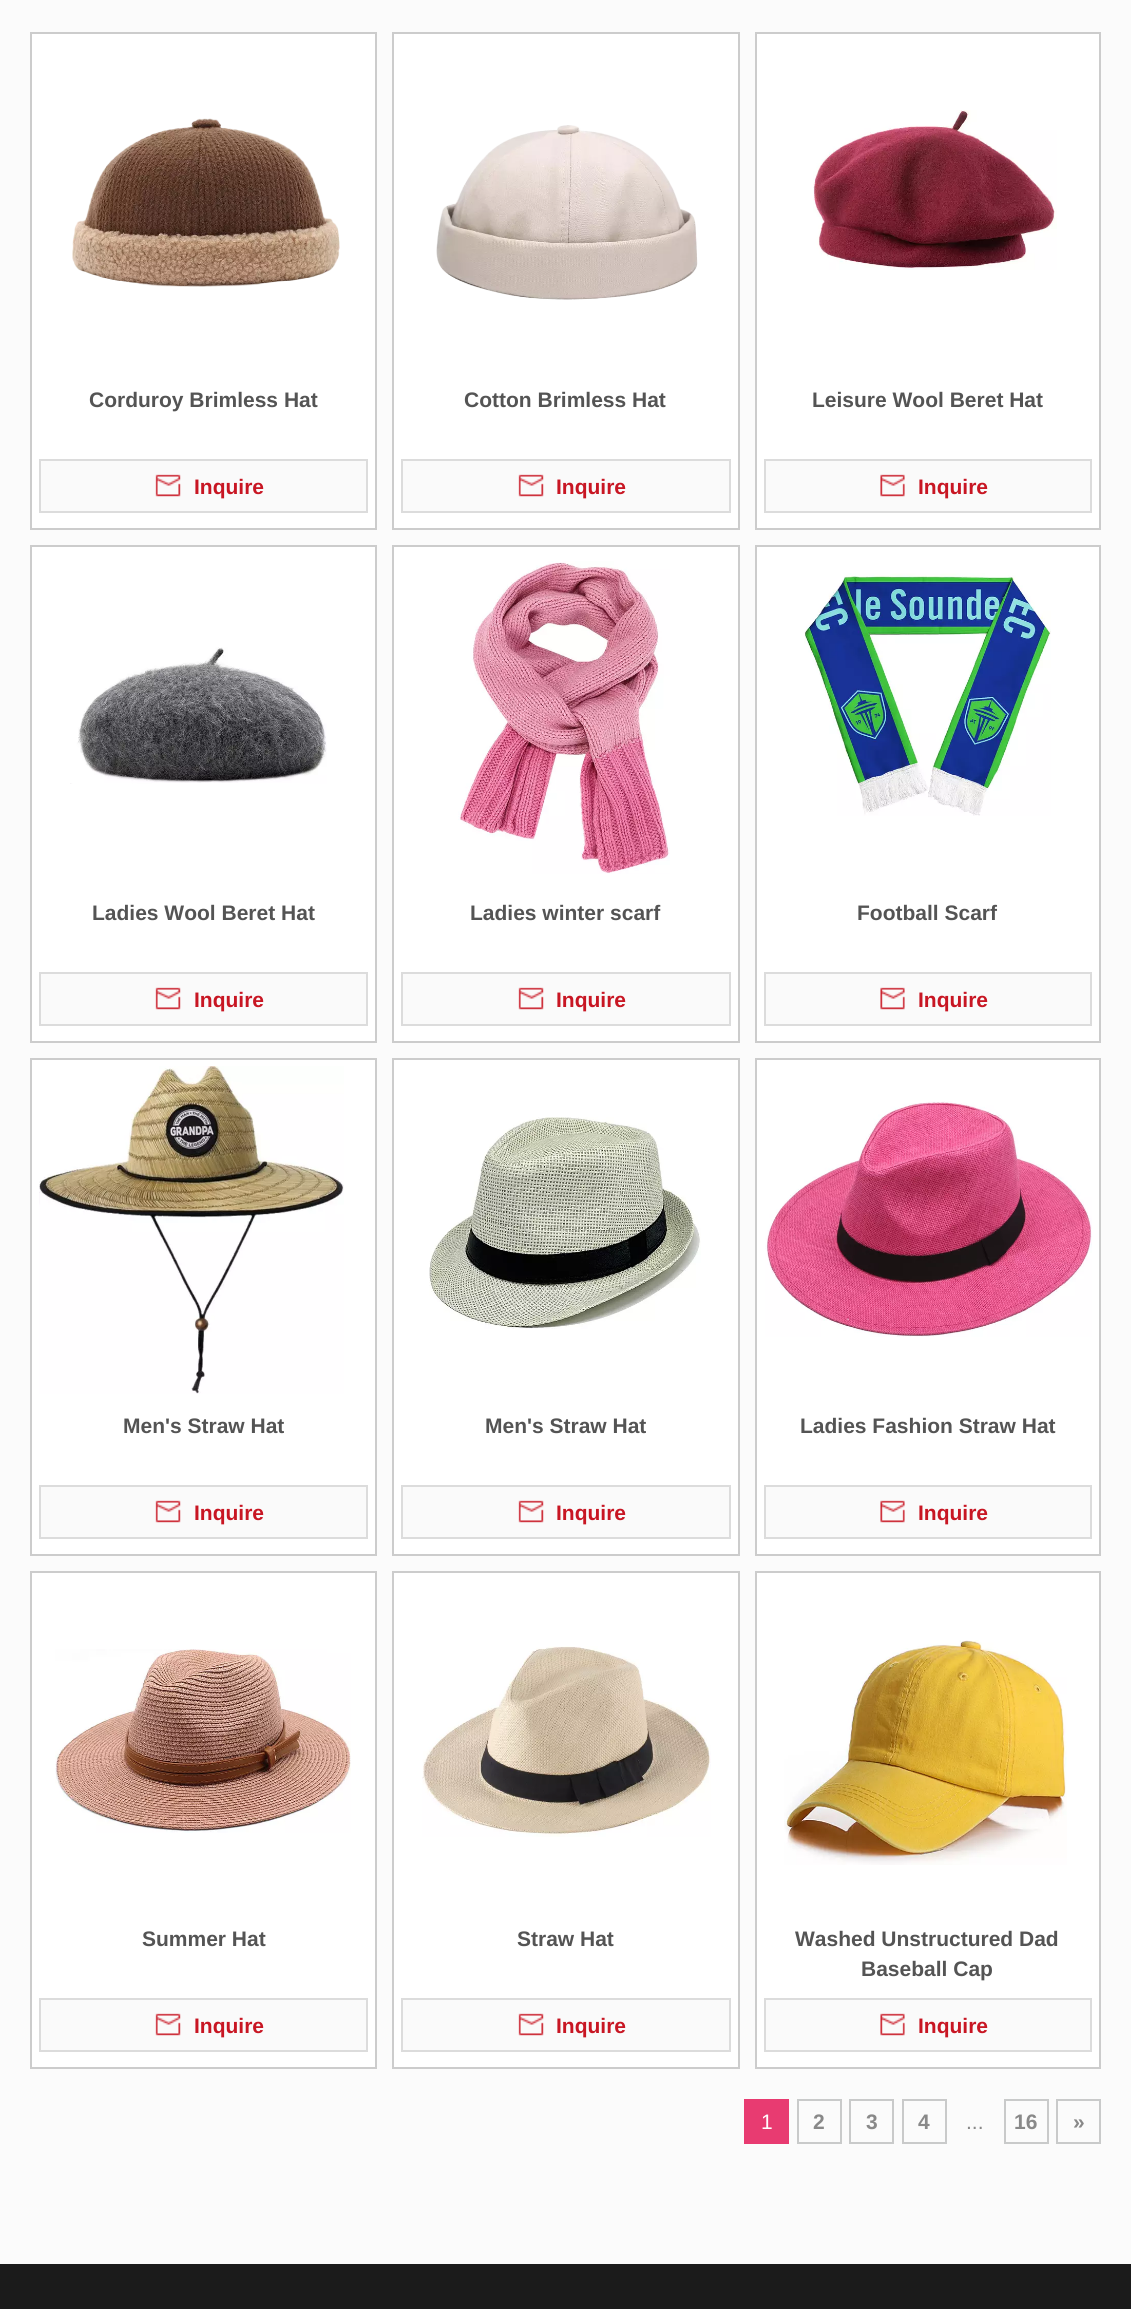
import math
import cairocffi as cairo

surface = cairo.ImageSurface(cairo.FORMAT_RGB24, 1131, 2309)
cr = cairo.Context(surface)
options = cairo.FontOptions()
options.set_hint_metrics(cairo.HINT_METRICS_OFF)
options.set_hint_style(cairo.HINT_STYLE_NONE)
cr.set_font_options(options)
cr.set_miter_limit(4)


def use_color(code):
    cr.set_source_rgb(*(v / 255 for v in bytes.fromhex(code[-6:])))


def picture(path, x, y, w, h):
    cr.save()
    cr.set_source_surface(cairo.ImageSurface.create_from_png(path), x, y)
    cr.rectangle(x, y, w, h)
    cr.fill()
    cr.restore()


use_color("#fbfbfb")
cr.paint()
use_color("#ffffff")
cr.rectangle(31, 33, 345, 496)
cr.fill_preserve()
use_color("#cccccc")
cr.stroke()
picture("img1.png", 72, 118, 268, 169)
cr.select_font_face("Liberation Sans", cairo.FONT_SLANT_NORMAL, cairo.FONT_WEIGHT_BOLD)
cr.set_font_size(21)
use_color("#545454")
cr.move_to(89, 407)
cr.show_text("Corduroy Brimless Hat")
use_color("#fafafa")
cr.rectangle(40, 460, 327, 52)
cr.fill_preserve()
use_color("#dcdcdc")
cr.stroke()
picture("img2.png", 155, 474, 26, 23)
use_color("#c81623")
cr.move_to(194, 494)
cr.show_text("Inquire")
use_color("#ffffff")
cr.rectangle(393, 33, 346, 496)
cr.fill_preserve()
use_color("#cccccc")
cr.stroke()
picture("img3.png", 436, 125, 262, 175)
use_color("#545454")
cr.move_to(464, 407)
cr.show_text("Cotton Brimless Hat")
use_color("#fafafa")
cr.rectangle(402, 460, 328, 52)
cr.fill_preserve()
use_color("#dcdcdc")
cr.stroke()
picture("img2.png", 518, 474, 26, 23)
use_color("#c81623")
cr.move_to(556, 494)
cr.show_text("Inquire")
use_color("#ffffff")
cr.rectangle(756, 33, 344, 496)
cr.fill_preserve()
use_color("#cccccc")
cr.stroke()
picture("img4.png", 813, 110, 244, 160)
use_color("#545454")
cr.move_to(812, 407)
cr.show_text("Leisure Wool Beret Hat")
use_color("#fafafa")
cr.rectangle(765, 460, 326, 52)
cr.fill_preserve()
use_color("#dcdcdc")
cr.stroke()
picture("img5.png", 880, 474, 25, 23)
use_color("#c81623")
cr.move_to(918, 494)
cr.show_text("Inquire")
use_color("#ffffff")
cr.rectangle(31, 546, 345, 496)
cr.fill_preserve()
use_color("#cccccc")
cr.stroke()
picture("img6.png", 70, 647, 257, 137)
use_color("#545454")
cr.move_to(92, 920)
cr.show_text("Ladies Wool Beret Hat")
use_color("#fafafa")
cr.rectangle(40, 973, 327, 52)
cr.fill_preserve()
use_color("#dcdcdc")
cr.stroke()
picture("img2.png", 155, 987, 26, 23)
use_color("#c81623")
cr.move_to(194, 1007)
cr.show_text("Inquire")
use_color("#ffffff")
cr.rectangle(393, 546, 346, 496)
cr.fill_preserve()
use_color("#cccccc")
cr.stroke()
picture("img7.png", 458, 561, 212, 313)
use_color("#545454")
cr.move_to(470, 920)
cr.show_text("Ladies winter scarf")
use_color("#fafafa")
cr.rectangle(402, 973, 328, 52)
cr.fill_preserve()
use_color("#dcdcdc")
cr.stroke()
picture("img2.png", 518, 987, 26, 23)
use_color("#c81623")
cr.move_to(556, 1007)
cr.show_text("Inquire")
use_color("#ffffff")
cr.rectangle(756, 546, 344, 496)
cr.fill_preserve()
use_color("#cccccc")
cr.stroke()
picture("img8.png", 804, 573, 247, 243)
use_color("#545454")
cr.move_to(857, 920)
cr.show_text("Football Scarf")
use_color("#fafafa")
cr.rectangle(765, 973, 326, 52)
cr.fill_preserve()
use_color("#dcdcdc")
cr.stroke()
picture("img5.png", 880, 987, 25, 23)
use_color("#c81623")
cr.move_to(918, 1007)
cr.show_text("Inquire")
use_color("#ffffff")
cr.rectangle(31, 1059, 345, 496)
cr.fill_preserve()
use_color("#cccccc")
cr.stroke()
picture("img9.png", 39, 1066, 305, 328)
use_color("#545454")
cr.move_to(123, 1433)
cr.show_text("Men's Straw Hat")
use_color("#fafafa")
cr.rectangle(40, 1486, 327, 52)
cr.fill_preserve()
use_color("#dcdcdc")
cr.stroke()
picture("img2.png", 155, 1500, 26, 23)
use_color("#c81623")
cr.move_to(194, 1520)
cr.show_text("Inquire")
use_color("#ffffff")
cr.rectangle(393, 1059, 346, 496)
cr.fill_preserve()
use_color("#cccccc")
cr.stroke()
picture("img10.png", 429, 1117, 272, 212)
use_color("#545454")
cr.move_to(485, 1433)
cr.show_text("Men's Straw Hat")
use_color("#fafafa")
cr.rectangle(402, 1486, 328, 52)
cr.fill_preserve()
use_color("#dcdcdc")
cr.stroke()
picture("img2.png", 518, 1500, 26, 23)
use_color("#c81623")
cr.move_to(556, 1520)
cr.show_text("Inquire")
use_color("#ffffff")
cr.rectangle(756, 1059, 344, 496)
cr.fill_preserve()
use_color("#cccccc")
cr.stroke()
picture("img11.png", 765, 1101, 327, 236)
use_color("#545454")
cr.move_to(800, 1433)
cr.show_text("Ladies Fashion Straw Hat")
use_color("#fafafa")
cr.rectangle(765, 1486, 326, 52)
cr.fill_preserve()
use_color("#dcdcdc")
cr.stroke()
picture("img5.png", 880, 1500, 25, 23)
use_color("#c81623")
cr.move_to(918, 1520)
cr.show_text("Inquire")
use_color("#ffffff")
cr.rectangle(31, 1572, 345, 496)
cr.fill_preserve()
use_color("#cccccc")
cr.stroke()
picture("img12.png", 55, 1649, 296, 184)
use_color("#545454")
cr.move_to(142, 1946)
cr.show_text("Summer Hat")
use_color("#fafafa")
cr.rectangle(40, 1999, 327, 52)
cr.fill_preserve()
use_color("#dcdcdc")
cr.stroke()
picture("img2.png", 155, 2013, 26, 23)
use_color("#c81623")
cr.move_to(194, 2033)
cr.show_text("Inquire")
use_color("#ffffff")
cr.rectangle(393, 1572, 346, 496)
cr.fill_preserve()
use_color("#cccccc")
cr.stroke()
picture("img13.png", 422, 1646, 289, 191)
use_color("#545454")
cr.move_to(517, 1946)
cr.show_text("Straw Hat")
use_color("#fafafa")
cr.rectangle(402, 1999, 328, 52)
cr.fill_preserve()
use_color("#dcdcdc")
cr.stroke()
picture("img2.png", 518, 2013, 26, 23)
use_color("#c81623")
cr.move_to(556, 2033)
cr.show_text("Inquire")
use_color("#ffffff")
cr.rectangle(756, 1572, 344, 496)
cr.fill_preserve()
use_color("#cccccc")
cr.stroke()
picture("img14.png", 784, 1640, 283, 225)
use_color("#545454")
cr.move_to(795, 1946)
cr.show_text("Washed Unstructured Dad")
cr.move_to(861, 1976)
cr.show_text("Baseball Cap")
use_color("#fafafa")
cr.rectangle(765, 1999, 326, 52)
cr.fill_preserve()
use_color("#dcdcdc")
cr.stroke()
picture("img5.png", 880, 2013, 25, 23)
use_color("#c81623")
cr.move_to(918, 2033)
cr.show_text("Inquire")
use_color("#e83b71")
cr.rectangle(744, 2099, 45, 45)
cr.fill()
cr.select_font_face("Liberation Sans")
use_color("#ffffff")
cr.move_to(761, 2129)
cr.show_text("1")
cr.rectangle(798, 2100, 43, 43)
use_color("#c9caca")
cr.stroke()
cr.select_font_face("Liberation Sans", cairo.FONT_SLANT_NORMAL, cairo.FONT_WEIGHT_BOLD)
use_color("#898989")
cr.move_to(813, 2129)
cr.show_text("2")
cr.rectangle(850, 2100, 43, 43)
use_color("#c9caca")
cr.stroke()
use_color("#898989")
cr.move_to(866, 2129)
cr.show_text("3")
cr.rectangle(903, 2100, 43, 43)
use_color("#c9caca")
cr.stroke()
use_color("#898989")
cr.move_to(918, 2129)
cr.show_text("4")
cr.select_font_face("Liberation Sans")
cr.move_to(966, 2129)
cr.show_text("...")
cr.rectangle(1005, 2100, 43, 43)
use_color("#c9caca")
cr.stroke()
cr.select_font_face("Liberation Sans", cairo.FONT_SLANT_NORMAL, cairo.FONT_WEIGHT_BOLD)
use_color("#898989")
cr.move_to(1014, 2129)
cr.show_text("16")
cr.rectangle(1057, 2100, 43, 43)
use_color("#c9caca")
cr.stroke()
use_color("#898989")
cr.move_to(1073, 2129)
cr.show_text("»")
use_color("#1b1b1b")
cr.rectangle(0, 2264, 1131, 45)
cr.fill()
surface.write_to_png("result.png")
